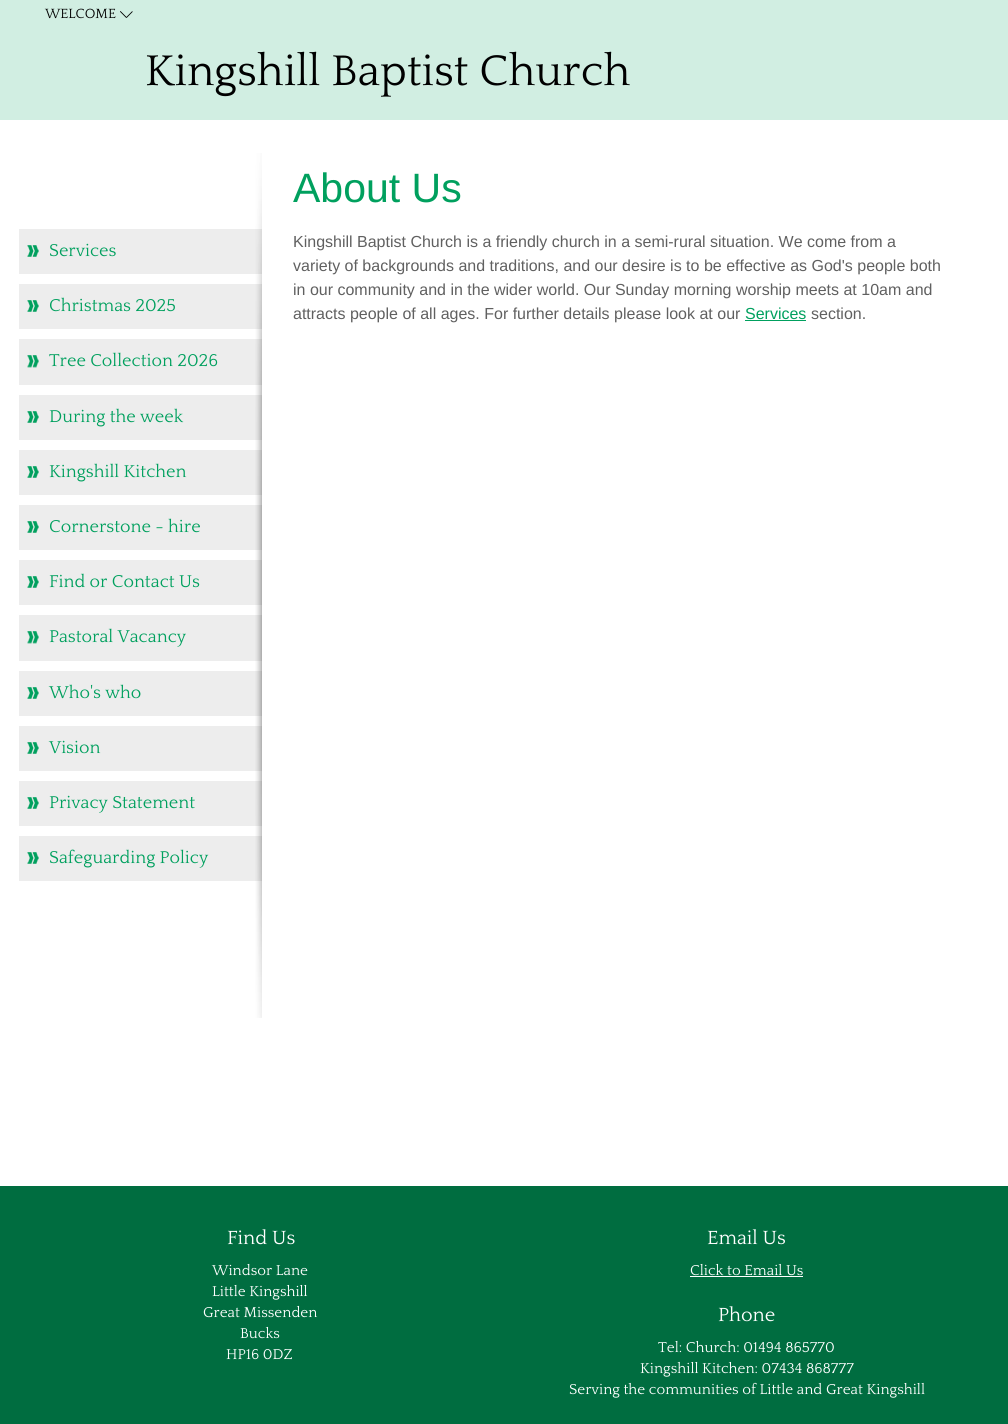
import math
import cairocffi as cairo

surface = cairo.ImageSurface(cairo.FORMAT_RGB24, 1008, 1424)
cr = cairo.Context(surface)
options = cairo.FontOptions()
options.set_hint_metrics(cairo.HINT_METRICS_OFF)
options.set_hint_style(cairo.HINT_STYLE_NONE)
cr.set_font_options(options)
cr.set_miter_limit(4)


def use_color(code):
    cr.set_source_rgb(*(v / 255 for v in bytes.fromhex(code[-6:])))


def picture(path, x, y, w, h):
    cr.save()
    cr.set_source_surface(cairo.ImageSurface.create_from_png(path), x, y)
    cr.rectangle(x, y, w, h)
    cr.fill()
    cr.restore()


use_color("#ffffff")
cr.paint()
use_color("#d1eee2")
cr.rectangle(0, 0, 1008, 120)
cr.fill()
picture("img1.png", 120, 11, 13, 7)
cr.select_font_face("Quattrocento")
cr.set_font_size(14)
use_color("#000000")
cr.move_to(45, 18)
cr.show_text("WELCOME")
cr.set_font_size(45)
cr.move_to(145, 85)
cr.show_text("Kingshill Baptist Church")
use_color("#ededed")
cr.rectangle(19, 229, 243, 45)
cr.fill()
picture("img2.png", 27, 245, 12, 12)
cr.set_font_size(18)
use_color("#00a05e")
cr.move_to(49, 256)
cr.show_text("Services")
use_color("#ededed")
cr.rectangle(19, 284, 243, 45)
cr.fill()
picture("img2.png", 27, 300, 12, 12)
use_color("#00a05e")
cr.move_to(49, 311)
cr.show_text("Christmas 2025")
use_color("#ededed")
cr.rectangle(19, 339, 243, 46)
cr.fill()
picture("img3.png", 27, 355, 12, 13)
use_color("#00a05e")
cr.move_to(49, 366)
cr.show_text("Tree Collection 2026")
use_color("#ededed")
cr.rectangle(19, 395, 243, 45)
cr.fill()
picture("img2.png", 27, 411, 12, 12)
use_color("#00a05e")
cr.move_to(49, 422)
cr.show_text("During the week")
use_color("#ededed")
cr.rectangle(19, 450, 243, 45)
cr.fill()
picture("img2.png", 27, 466, 12, 12)
use_color("#00a05e")
cr.move_to(49, 477)
cr.show_text("Kingshill Kitchen")
use_color("#ededed")
cr.rectangle(19, 505, 243, 45)
cr.fill()
picture("img2.png", 27, 521, 12, 12)
use_color("#00a05e")
cr.move_to(49, 532)
cr.show_text("Cornerstone - hire")
use_color("#ededed")
cr.rectangle(19, 560, 243, 45)
cr.fill()
picture("img2.png", 27, 576, 12, 12)
use_color("#00a05e")
cr.move_to(49, 587)
cr.show_text("Find or Contact Us")
use_color("#ededed")
cr.rectangle(19, 615, 243, 46)
cr.fill()
picture("img3.png", 27, 631, 12, 13)
use_color("#00a05e")
cr.move_to(49, 642)
cr.show_text("Pastoral Vacancy")
use_color("#ededed")
cr.rectangle(19, 671, 243, 45)
cr.fill()
picture("img2.png", 27, 687, 12, 12)
use_color("#00a05e")
cr.move_to(49, 698)
cr.show_text("Who's who")
use_color("#ededed")
cr.rectangle(19, 726, 243, 45)
cr.fill()
picture("img2.png", 27, 742, 12, 12)
use_color("#00a05e")
cr.move_to(49, 753)
cr.show_text("Vision")
use_color("#ededed")
cr.rectangle(19, 781, 243, 45)
cr.fill()
picture("img2.png", 27, 797, 12, 12)
use_color("#00a05e")
cr.move_to(49, 808)
cr.show_text("Privacy Statement")
use_color("#ededed")
cr.rectangle(19, 836, 243, 45)
cr.fill()
picture("img2.png", 27, 852, 12, 12)
use_color("#00a05e")
cr.move_to(49, 863)
cr.show_text("Safeguarding Policy")
picture("img4.png", 255, 153, 7, 865)
cr.select_font_face("Liberation Sans")
cr.set_font_size(41)
cr.move_to(293, 202)
cr.show_text("About Us")
cr.set_font_size(16)
use_color("#606060")
cr.move_to(293, 247)
cr.show_text("Kingshill Baptist Church is a friendly church in a semi-rural situation. We come from a")
cr.move_to(293, 271)
cr.show_text("variety of backgrounds and traditions, and our desire is to be effective as God's people both")
cr.move_to(293, 295)
cr.show_text("in our community and in the wider world. Our Sunday morning worship meets at 10am and")
cr.move_to(293, 319)
cr.show_text("attracts people of all ages. For further details please look at our")
use_color("#00a05e")
cr.move_to(745, 319)
cr.show_text("Services")
cr.rectangle(745, 320, 61, 1)
cr.fill()
use_color("#606060")
cr.move_to(811, 319)
cr.show_text("section.")
use_color("#006d40")
cr.rectangle(0, 1186, 1008, 238)
cr.fill()
cr.select_font_face("Quattrocento")
cr.set_font_size(20)
use_color("#ffffff")
cr.move_to(227, 1244)
cr.show_text("Find Us")
cr.set_font_size(15)
cr.move_to(212, 1275)
cr.show_text("Windsor Lane")
cr.move_to(212, 1296)
cr.show_text("Little Kingshill")
cr.move_to(203, 1317)
cr.show_text("Great Missenden")
cr.move_to(240, 1338)
cr.show_text("Bucks")
cr.move_to(226, 1359)
cr.show_text("HP16 0DZ")
cr.set_font_size(20)
cr.move_to(707, 1244)
cr.show_text("Email Us")
cr.set_font_size(15)
cr.move_to(690, 1275)
cr.show_text("Click to Email Us")
cr.rectangle(690, 1276, 113, 1)
cr.fill()
cr.set_font_size(20)
cr.move_to(718, 1321)
cr.show_text("Phone")
cr.set_font_size(15)
cr.move_to(658, 1352)
cr.show_text("Tel: Church: 01494 865770")
cr.move_to(640, 1373)
cr.show_text("Kingshill Kitchen: 07434 868777")
cr.move_to(569, 1394)
cr.show_text("Serving the communities of Little and Great Kingshill")
surface.write_to_png("result.png")
